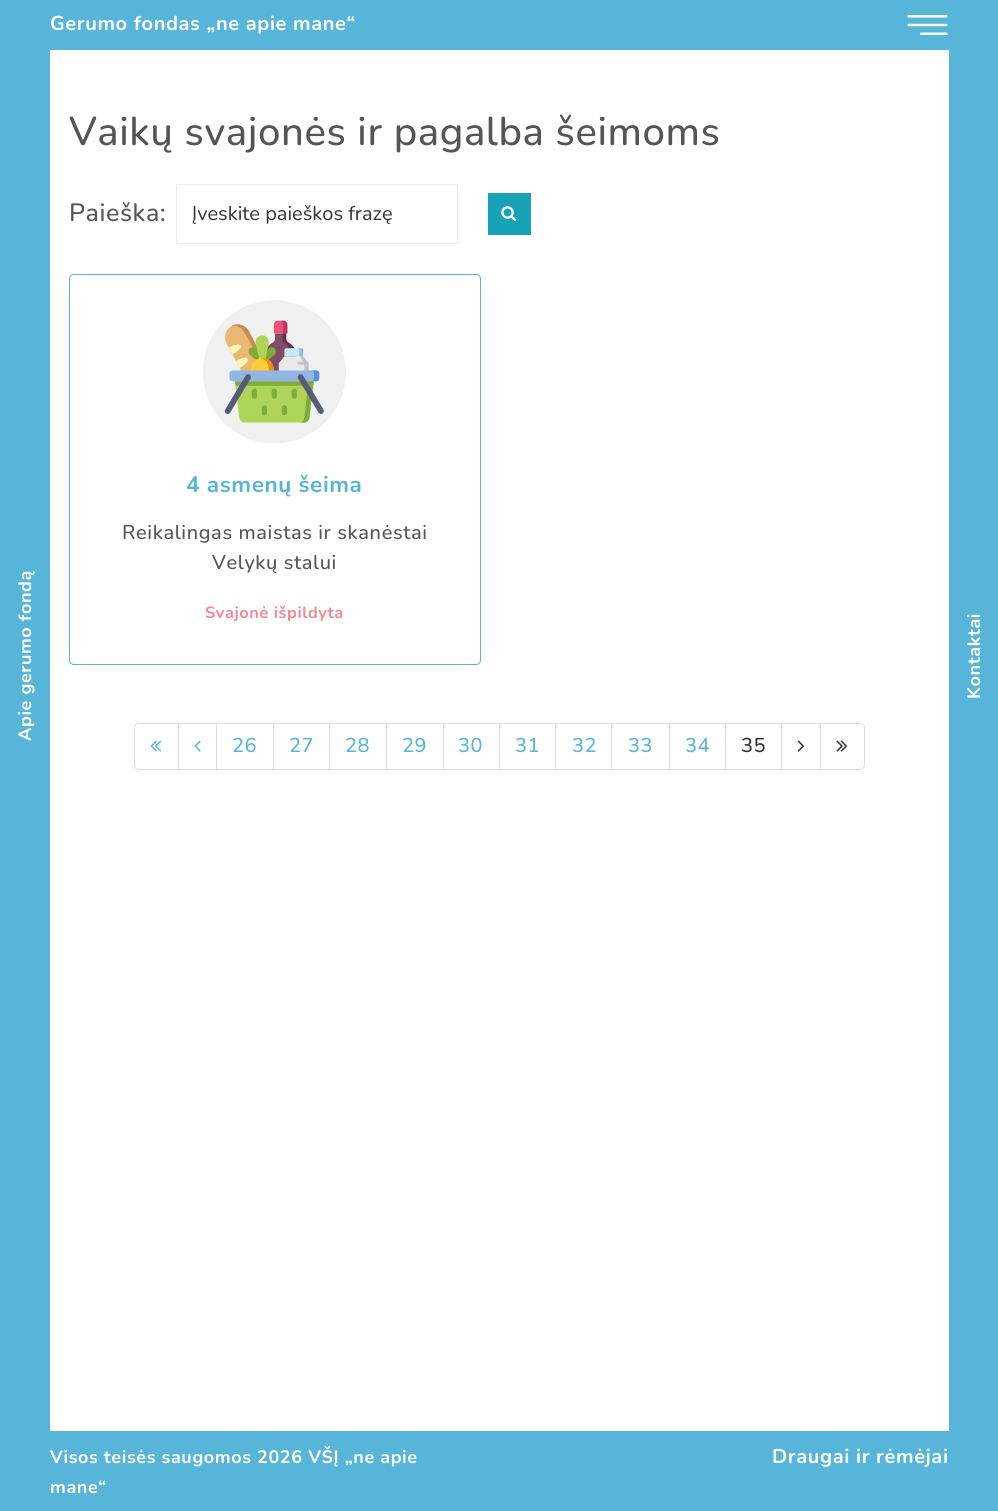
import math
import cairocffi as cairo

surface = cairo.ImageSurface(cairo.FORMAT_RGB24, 998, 1511)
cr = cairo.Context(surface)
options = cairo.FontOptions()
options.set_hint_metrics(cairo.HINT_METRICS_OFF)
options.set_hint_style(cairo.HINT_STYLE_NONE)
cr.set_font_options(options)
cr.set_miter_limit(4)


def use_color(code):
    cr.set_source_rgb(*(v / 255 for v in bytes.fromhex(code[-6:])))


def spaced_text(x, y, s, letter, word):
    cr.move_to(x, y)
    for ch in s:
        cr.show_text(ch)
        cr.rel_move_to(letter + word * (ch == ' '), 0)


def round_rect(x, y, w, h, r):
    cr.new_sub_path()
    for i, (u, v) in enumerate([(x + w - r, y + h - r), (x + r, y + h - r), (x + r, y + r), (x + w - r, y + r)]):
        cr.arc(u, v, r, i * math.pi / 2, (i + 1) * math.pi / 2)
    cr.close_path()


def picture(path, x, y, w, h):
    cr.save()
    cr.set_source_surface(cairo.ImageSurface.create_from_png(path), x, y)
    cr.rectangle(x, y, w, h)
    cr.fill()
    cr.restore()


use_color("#ffffff")
cr.paint()
use_color("#57b5d9")
cr.rectangle(0, 0, 998, 50)
cr.fill()
cr.select_font_face("Nunito", cairo.FONT_SLANT_NORMAL, cairo.FONT_WEIGHT_BOLD)
cr.set_font_size(20)
use_color("#ffffff")
spaced_text(50, 30, "Gerumo fondas „ne apie mane“", 0.6, 0)
picture("img1.png", 907, 15, 41, 20)
use_color("#57b5d9")
cr.rectangle(0, 50, 50, 1381)
cr.fill()
cr.set_font_size(18)
use_color("#ffffff")
cr.save()
cr.translate(31, 741)
cr.rotate(-90 * math.pi / 180)
spaced_text(0, 0, "Apie gerumo fondą", 0.6, 0)
cr.restore()
use_color("#57b5d9")
cr.rectangle(949, 50, 49, 1381)
cr.fill()
use_color("#ffffff")
cr.save()
cr.translate(980, 699)
cr.rotate(-90 * math.pi / 180)
spaced_text(0, 0, "Kontaktai", 0.6, 0)
cr.restore()
cr.select_font_face("Nunito Medium")
cr.set_font_size(40)
use_color("#555555")
spaced_text(69, 145, "Vaikų svajonės ir pagalba šeimoms", 0.6, 0)
cr.set_font_size(25)
spaced_text(69, 221, "Paieška:", 0.6, 0)
cr.rectangle(176.5, 184.5, 281, 59)
use_color("#ededed")
cr.set_line_width(1)
cr.stroke()
cr.select_font_face("Nunito")
cr.set_font_size(20)
use_color("#333333")
cr.move_to(192, 220)
cr.show_text("Įveskite paieškos frazę")
use_color("#17a2b8")
cr.rectangle(488, 193, 43, 42)
cr.fill()
picture("img2.png", 501, 206, 16, 15)
round_rect(69.5, 274.5, 411, 390, 4.5)
use_color("#57b5d9")
cr.stroke()
picture("img3.png", 203, 300, 143, 144)
cr.select_font_face("Nunito", cairo.FONT_SLANT_NORMAL, cairo.FONT_WEIGHT_BOLD)
cr.set_font_size(22.5)
spaced_text(186, 492, "4 asmenų šeima", 0.6, 0)
cr.select_font_face("Nunito Medium")
cr.set_font_size(20)
use_color("#555555")
spaced_text(122, 539, "Reikalingas maistas ir skanėstai", 0.6, 0)
spaced_text(212, 569, "Velykų stalui", 0.6, 0)
cr.select_font_face("Nunito", cairo.FONT_SLANT_NORMAL, cairo.FONT_WEIGHT_BOLD)
cr.set_font_size(16.25)
use_color("#f48793")
spaced_text(205, 618, "Svajonė išpildyta", 0.6, 0)
cr.new_path()
cr.move_to(139, 723.5)
cr.line_to(178.5, 723.5)
cr.line_to(178.5, 769.5)
cr.line_to(139, 769.5)
cr.curve_to(136.5, 769.5, 134.5, 767.5, 134.5, 765)
cr.line_to(134.5, 728)
cr.curve_to(134.5, 725.5, 136.5, 723.5, 139, 723.5)
cr.close_path()
use_color("#dddddd")
cr.stroke()
picture("img4.png", 150, 740, 12, 12)
cr.rectangle(178.5, 723.5, 39, 46)
cr.stroke()
picture("img5.png", 194, 740, 7, 12)
use_color("#ffffff")
cr.rectangle(217, 724, 1, 45)
cr.fill()
cr.rectangle(216.5, 723.5, 57, 46)
use_color("#dddddd")
cr.stroke()
cr.select_font_face("Nunito Medium")
cr.set_font_size(20)
use_color("#57b5d9")
spaced_text(232, 752, "26", 0.6, 0)
cr.rectangle(273.5, 723.5, 56, 46)
use_color("#dddddd")
cr.stroke()
use_color("#57b5d9")
spaced_text(289, 752, "27", 0.6, 0)
cr.rectangle(329.5, 723.5, 58, 46)
use_color("#dddddd")
cr.stroke()
use_color("#57b5d9")
spaced_text(345, 752, "28", 0.6, 0)
use_color("#ffffff")
cr.rectangle(387, 724, 1, 45)
cr.fill()
cr.rectangle(386.5, 723.5, 57, 46)
use_color("#dddddd")
cr.stroke()
use_color("#57b5d9")
spaced_text(402, 752, "29", 0.6, 0)
cr.rectangle(443.5, 723.5, 56, 46)
use_color("#dddddd")
cr.stroke()
use_color("#57b5d9")
spaced_text(458, 752, "30", 0.6, 0)
cr.rectangle(499.5, 723.5, 56, 46)
use_color("#dddddd")
cr.stroke()
use_color("#57b5d9")
spaced_text(515, 752, "31", 0.6, 0)
cr.rectangle(555.5, 723.5, 57, 46)
use_color("#dddddd")
cr.stroke()
use_color("#57b5d9")
spaced_text(572, 752, "32", 0.6, 0)
use_color("#ffffff")
cr.rectangle(612, 724, 1, 45)
cr.fill()
cr.rectangle(611.5, 723.5, 58, 46)
use_color("#dddddd")
cr.stroke()
use_color("#57b5d9")
spaced_text(628, 752, "33", 0.6, 0)
cr.rectangle(669.5, 723.5, 56, 46)
use_color("#dddddd")
cr.stroke()
use_color("#57b5d9")
spaced_text(685, 752, "34", 0.6, 0)
cr.rectangle(725.5, 723.5, 57, 46)
use_color("#dddddd")
cr.stroke()
use_color("#333333")
spaced_text(741, 752, "35", 0.6, 0)
use_color("#ffffff")
cr.rectangle(782, 724, 1, 45)
cr.fill()
cr.rectangle(781.5, 723.5, 39, 46)
use_color("#dddddd")
cr.stroke()
picture("img6.png", 797, 740, 8, 12)
use_color("#ffffff")
cr.new_path()
cr.move_to(820.5, 723.5)
cr.line_to(860, 723.5)
cr.curve_to(862.5, 723.5, 864.5, 725.5, 864.5, 728)
cr.line_to(864.5, 765)
cr.curve_to(864.5, 767.5, 862.5, 769.5, 860, 769.5)
cr.line_to(820.5, 769.5)
cr.close_path()
cr.fill_preserve()
use_color("#dddddd")
cr.stroke()
picture("img7.png", 836, 740, 12, 12)
use_color("#57b5d9")
cr.rectangle(0, 1431, 998, 80)
cr.fill()
cr.select_font_face("Nunito", cairo.FONT_SLANT_NORMAL, cairo.FONT_WEIGHT_BOLD)
cr.set_font_size(18)
use_color("#ffffff")
spaced_text(50, 1463, "Visos teisės saugomos 2026 VŠĮ „ne apie", 0.6, 0)
spaced_text(50, 1493, "mane“", 0.6, 0)
cr.set_font_size(20)
spaced_text(772, 1463, "Draugai ir rėmėjai", 0.6, 0)
surface.write_to_png("result.png")
